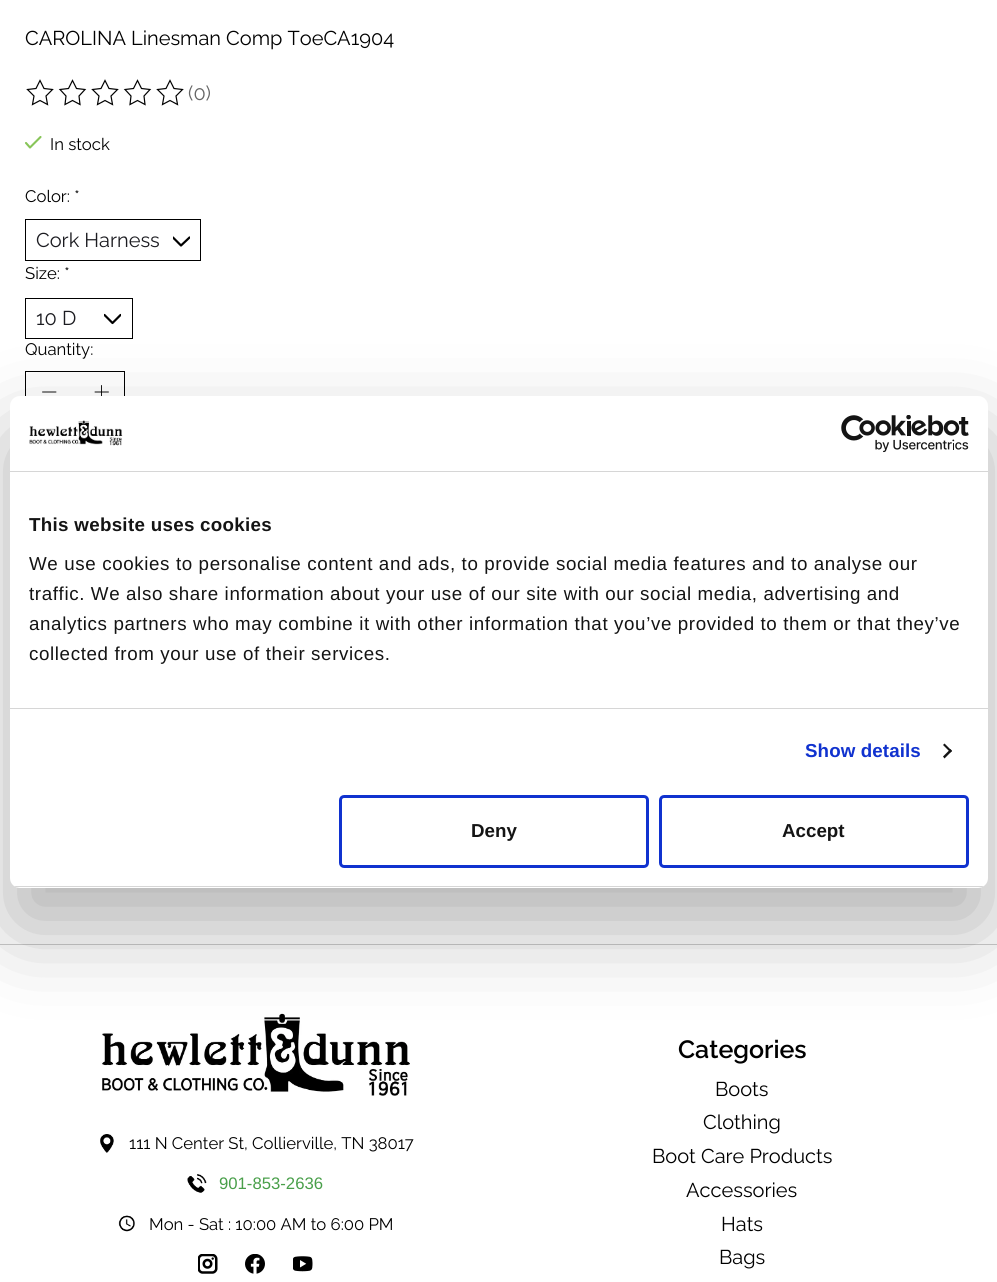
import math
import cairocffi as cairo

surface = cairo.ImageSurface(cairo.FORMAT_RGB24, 997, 1282)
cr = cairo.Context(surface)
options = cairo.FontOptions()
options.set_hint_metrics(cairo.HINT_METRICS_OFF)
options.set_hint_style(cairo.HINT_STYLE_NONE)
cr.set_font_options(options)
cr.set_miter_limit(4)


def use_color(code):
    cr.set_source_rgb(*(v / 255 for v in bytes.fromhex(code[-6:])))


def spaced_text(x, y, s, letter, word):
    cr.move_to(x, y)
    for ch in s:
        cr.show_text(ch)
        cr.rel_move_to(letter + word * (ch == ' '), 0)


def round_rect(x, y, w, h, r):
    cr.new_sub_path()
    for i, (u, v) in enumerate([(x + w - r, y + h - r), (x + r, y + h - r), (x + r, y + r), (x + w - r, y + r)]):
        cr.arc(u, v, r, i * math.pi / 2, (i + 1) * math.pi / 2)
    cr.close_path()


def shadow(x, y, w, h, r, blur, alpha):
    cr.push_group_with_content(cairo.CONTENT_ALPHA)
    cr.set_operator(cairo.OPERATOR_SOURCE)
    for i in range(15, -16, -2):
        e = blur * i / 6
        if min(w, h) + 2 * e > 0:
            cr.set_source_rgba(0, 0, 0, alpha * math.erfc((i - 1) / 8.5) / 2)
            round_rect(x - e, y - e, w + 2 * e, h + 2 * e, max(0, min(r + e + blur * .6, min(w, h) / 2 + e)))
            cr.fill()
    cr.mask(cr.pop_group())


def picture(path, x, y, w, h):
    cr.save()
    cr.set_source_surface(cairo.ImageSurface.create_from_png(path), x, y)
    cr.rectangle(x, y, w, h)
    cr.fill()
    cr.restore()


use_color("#ffffff")
cr.paint()
cr.select_font_face("Raleway")
cr.set_font_size(20)
use_color("#000000")
cr.move_to(25, 45)
cr.show_text("CAROLINA Linesman Comp ToeCA1904")
cr.new_path()
cr.move_to(40, 80.5)
cr.line_to(44, 88.5)
cr.line_to(52.5, 89.5)
cr.line_to(46, 96)
cr.line_to(47.5, 104.5)
cr.line_to(40, 100.5)
cr.line_to(32.5, 104.5)
cr.line_to(34, 96)
cr.line_to(27.5, 89.5)
cr.line_to(36, 88.5)
cr.close_path()
cr.move_to(72.5, 80.5)
cr.line_to(76.5, 88.5)
cr.line_to(85, 89.5)
cr.line_to(79, 96)
cr.line_to(80, 104.5)
cr.line_to(72.5, 100.5)
cr.line_to(65, 104.5)
cr.line_to(66, 96)
cr.line_to(60, 89.5)
cr.line_to(68.5, 88.5)
cr.close_path()
cr.set_line_width(1.2)
cr.stroke()
cr.new_path()
cr.move_to(105, 80.5)
cr.line_to(109, 88.5)
cr.line_to(117.5, 89.5)
cr.line_to(111, 96)
cr.line_to(112.5, 104.5)
cr.line_to(105, 100.5)
cr.line_to(97.5, 104.5)
cr.line_to(99, 96)
cr.line_to(92.5, 89.5)
cr.line_to(101, 88.5)
cr.close_path()
cr.move_to(137.5, 80.5)
cr.line_to(141.5, 88.5)
cr.line_to(150, 89.5)
cr.line_to(144, 96)
cr.line_to(145, 104.5)
cr.line_to(137.5, 100.5)
cr.line_to(130, 104.5)
cr.line_to(131, 96)
cr.line_to(125, 89.5)
cr.line_to(133.5, 88.5)
cr.close_path()
cr.stroke()
cr.new_path()
cr.move_to(170, 80.5)
cr.line_to(174, 88.5)
cr.line_to(182.5, 89.5)
cr.line_to(176, 96)
cr.line_to(177.5, 104.5)
cr.line_to(170, 100.5)
cr.line_to(162.5, 104.5)
cr.line_to(164, 96)
cr.line_to(157.5, 89.5)
cr.line_to(166, 88.5)
cr.close_path()
cr.stroke()
use_color("#666666")
cr.move_to(188, 100)
cr.show_text("(0)")
cr.new_path()
cr.move_to(26, 143)
cr.line_to(30, 147.5)
cr.line_to(40.5, 137)
use_color("#88c559")
cr.set_line_width(2.1)
cr.set_line_cap(cairo.LINE_CAP_ROUND)
cr.set_line_join(cairo.LINE_JOIN_ROUND)
cr.stroke()
cr.set_font_size(16.7)
use_color("#000000")
cr.move_to(50, 150)
cr.show_text("In stock")
cr.move_to(25, 202)
cr.show_text("Color: *")
cr.save()
cr.rectangle(173, 233, 17, 17)
cr.clip()
cr.new_path()
cr.move_to(189.5, 237.5)
cr.line_to(181, 245.5)
cr.line_to(173, 237.5)
cr.set_line_width(2.2)
cr.stroke()
cr.restore()
cr.rectangle(25.5, 219.5, 175, 41)
cr.set_line_width(1)
cr.set_line_cap(cairo.LINE_CAP_BUTT)
cr.set_line_join(cairo.LINE_JOIN_MITER)
cr.stroke()
cr.set_font_size(20)
use_color("#1c1c21")
cr.move_to(36, 247)
cr.show_text("Cork Harness")
cr.set_font_size(16.7)
use_color("#000000")
cr.move_to(25, 279)
cr.show_text("Size: *")
cr.save()
cr.rectangle(104, 310, 17, 18)
cr.clip()
cr.new_path()
cr.move_to(120.5, 315)
cr.line_to(112.5, 323)
cr.line_to(104.5, 315)
cr.set_line_width(2.2)
cr.set_line_cap(cairo.LINE_CAP_ROUND)
cr.set_line_join(cairo.LINE_JOIN_ROUND)
cr.stroke()
cr.restore()
cr.rectangle(25.5, 298.5, 107, 40)
cr.stroke()
cr.set_font_size(20)
use_color("#1c1c21")
cr.move_to(36, 325)
cr.show_text("10 D")
cr.set_font_size(16.7)
use_color("#000000")
cr.move_to(25, 355)
cr.show_text("Quantity:")
cr.rectangle(25.5, 371.5, 99, 41)
cr.stroke()
cr.new_path()
cr.move_to(42.5, 392)
cr.line_to(56, 392)
cr.set_line_width(0.9)
cr.set_line_cap(cairo.LINE_CAP_ROUND)
cr.set_line_join(cairo.LINE_JOIN_ROUND)
cr.stroke()
cr.new_path()
cr.move_to(101.5, 385.5)
cr.line_to(101.5, 398.5)
cr.move_to(95, 392)
cr.line_to(108.5, 392)
cr.stroke()
use_color("#cccccc")
cr.rectangle(0, 944, 997, 1)
cr.fill()
picture("img3.png", 101, 1013, 309, 83)
use_color("#000000")
shadow(10, 436, 978, 492, 10, 42.5, 0.3)
use_color("#ffffff")
round_rect(10, 396, 978, 492, 10)
cr.fill()
use_color("#d6d6d6")
cr.rectangle(10, 471, 978, 1)
cr.fill()
picture("img1.png", 29, 420, 94, 26)
picture("img2.png", 841, 415, 128, 38)
cr.rectangle(10, 708, 978, 1)
cr.fill()
cr.select_font_face("Liberation Sans", cairo.FONT_SLANT_NORMAL, cairo.FONT_WEIGHT_BOLD)
cr.set_font_size(18.75)
use_color("#141414")
spaced_text(29, 531, "This website uses cookies", 0.3, 0)
cr.select_font_face("Liberation Sans")
spaced_text(29, 570, "We use cookies to personalise content and ads, to provide social media features and to analyse our", 0.62, 0)
spaced_text(29, 600, "traffic. We also share information about your use of our site with our social media, advertising and", 0.62, 0)
spaced_text(29, 630, "analytics partners who may combine it with other information that you’ve provided to them or that they’ve", 0.62, 0)
spaced_text(29, 660, "collected from your use of their services.", 0.62, 0)
cr.select_font_face("Liberation Sans", cairo.FONT_SLANT_NORMAL, cairo.FONT_WEIGHT_BOLD)
use_color("#1032cf")
spaced_text(805, 757, "Show details", 0.1, 0)
use_color("#141414")
cr.new_path()
cr.move_to(944.5, 743.5)
cr.line_to(952, 751)
cr.line_to(950.5, 752.5)
cr.line_to(943, 745)
cr.close_path()
cr.fill()
cr.new_path()
cr.move_to(950.5, 749)
cr.line_to(952, 751)
cr.line_to(944.5, 758.5)
cr.line_to(943, 756.5)
cr.close_path()
cr.fill()
cr.save()
round_rect(10, 396, 978, 492, 10)
cr.clip()
use_color("#d6d6d6")
cr.rectangle(10, 886, 978, 1)
cr.fill()
cr.restore()
round_rect(340.5, 796.5, 307, 70, 3.5)
use_color("#1032cf")
cr.set_line_width(3)
cr.set_line_cap(cairo.LINE_CAP_BUTT)
cr.set_line_join(cairo.LINE_JOIN_MITER)
cr.stroke()
use_color("#141414")
cr.move_to(471, 837)
cr.show_text("Deny")
round_rect(660.5, 796.5, 307, 70, 3.5)
use_color("#1032cf")
cr.stroke()
use_color("#141414")
cr.move_to(782, 837)
cr.show_text("Accept")
picture("img4.png", 100, 1134, 14, 19)
cr.select_font_face("Raleway")
cr.set_font_size(16.7)
use_color("#000000")
cr.move_to(129, 1149)
cr.show_text("111 N Center St, Collierville, TN 38017")
picture("img5.png", 187, 1174, 20, 19)
cr.select_font_face("Liberation Sans")
use_color("#499f4a")
cr.move_to(219, 1189)
cr.show_text("901-853-2636")
picture("img6.png", 118, 1215, 17, 17)
cr.select_font_face("Raleway")
use_color("#000000")
cr.move_to(149, 1230)
cr.show_text("Mon - Sat : 10:00 AM to 6:00 PM")
picture("img7.png", 198, 1254, 20, 20)
picture("img8.png", 245, 1254, 20, 20)
picture("img9.png", 293, 1256, 20, 16)
cr.select_font_face("Raleway SemiBold")
cr.set_font_size(25)
cr.move_to(678, 1058)
cr.show_text("Categories")
cr.select_font_face("Raleway")
cr.set_font_size(20)
cr.move_to(715, 1096)
cr.show_text("Boots")
cr.move_to(703, 1129)
cr.show_text("Clothing")
cr.move_to(652, 1163)
cr.show_text("Boot Care Products")
cr.move_to(686, 1197)
cr.show_text("Accessories")
cr.move_to(721, 1231)
cr.show_text("Hats")
cr.move_to(719, 1264)
cr.show_text("Bags")
surface.write_to_png("result.png")
